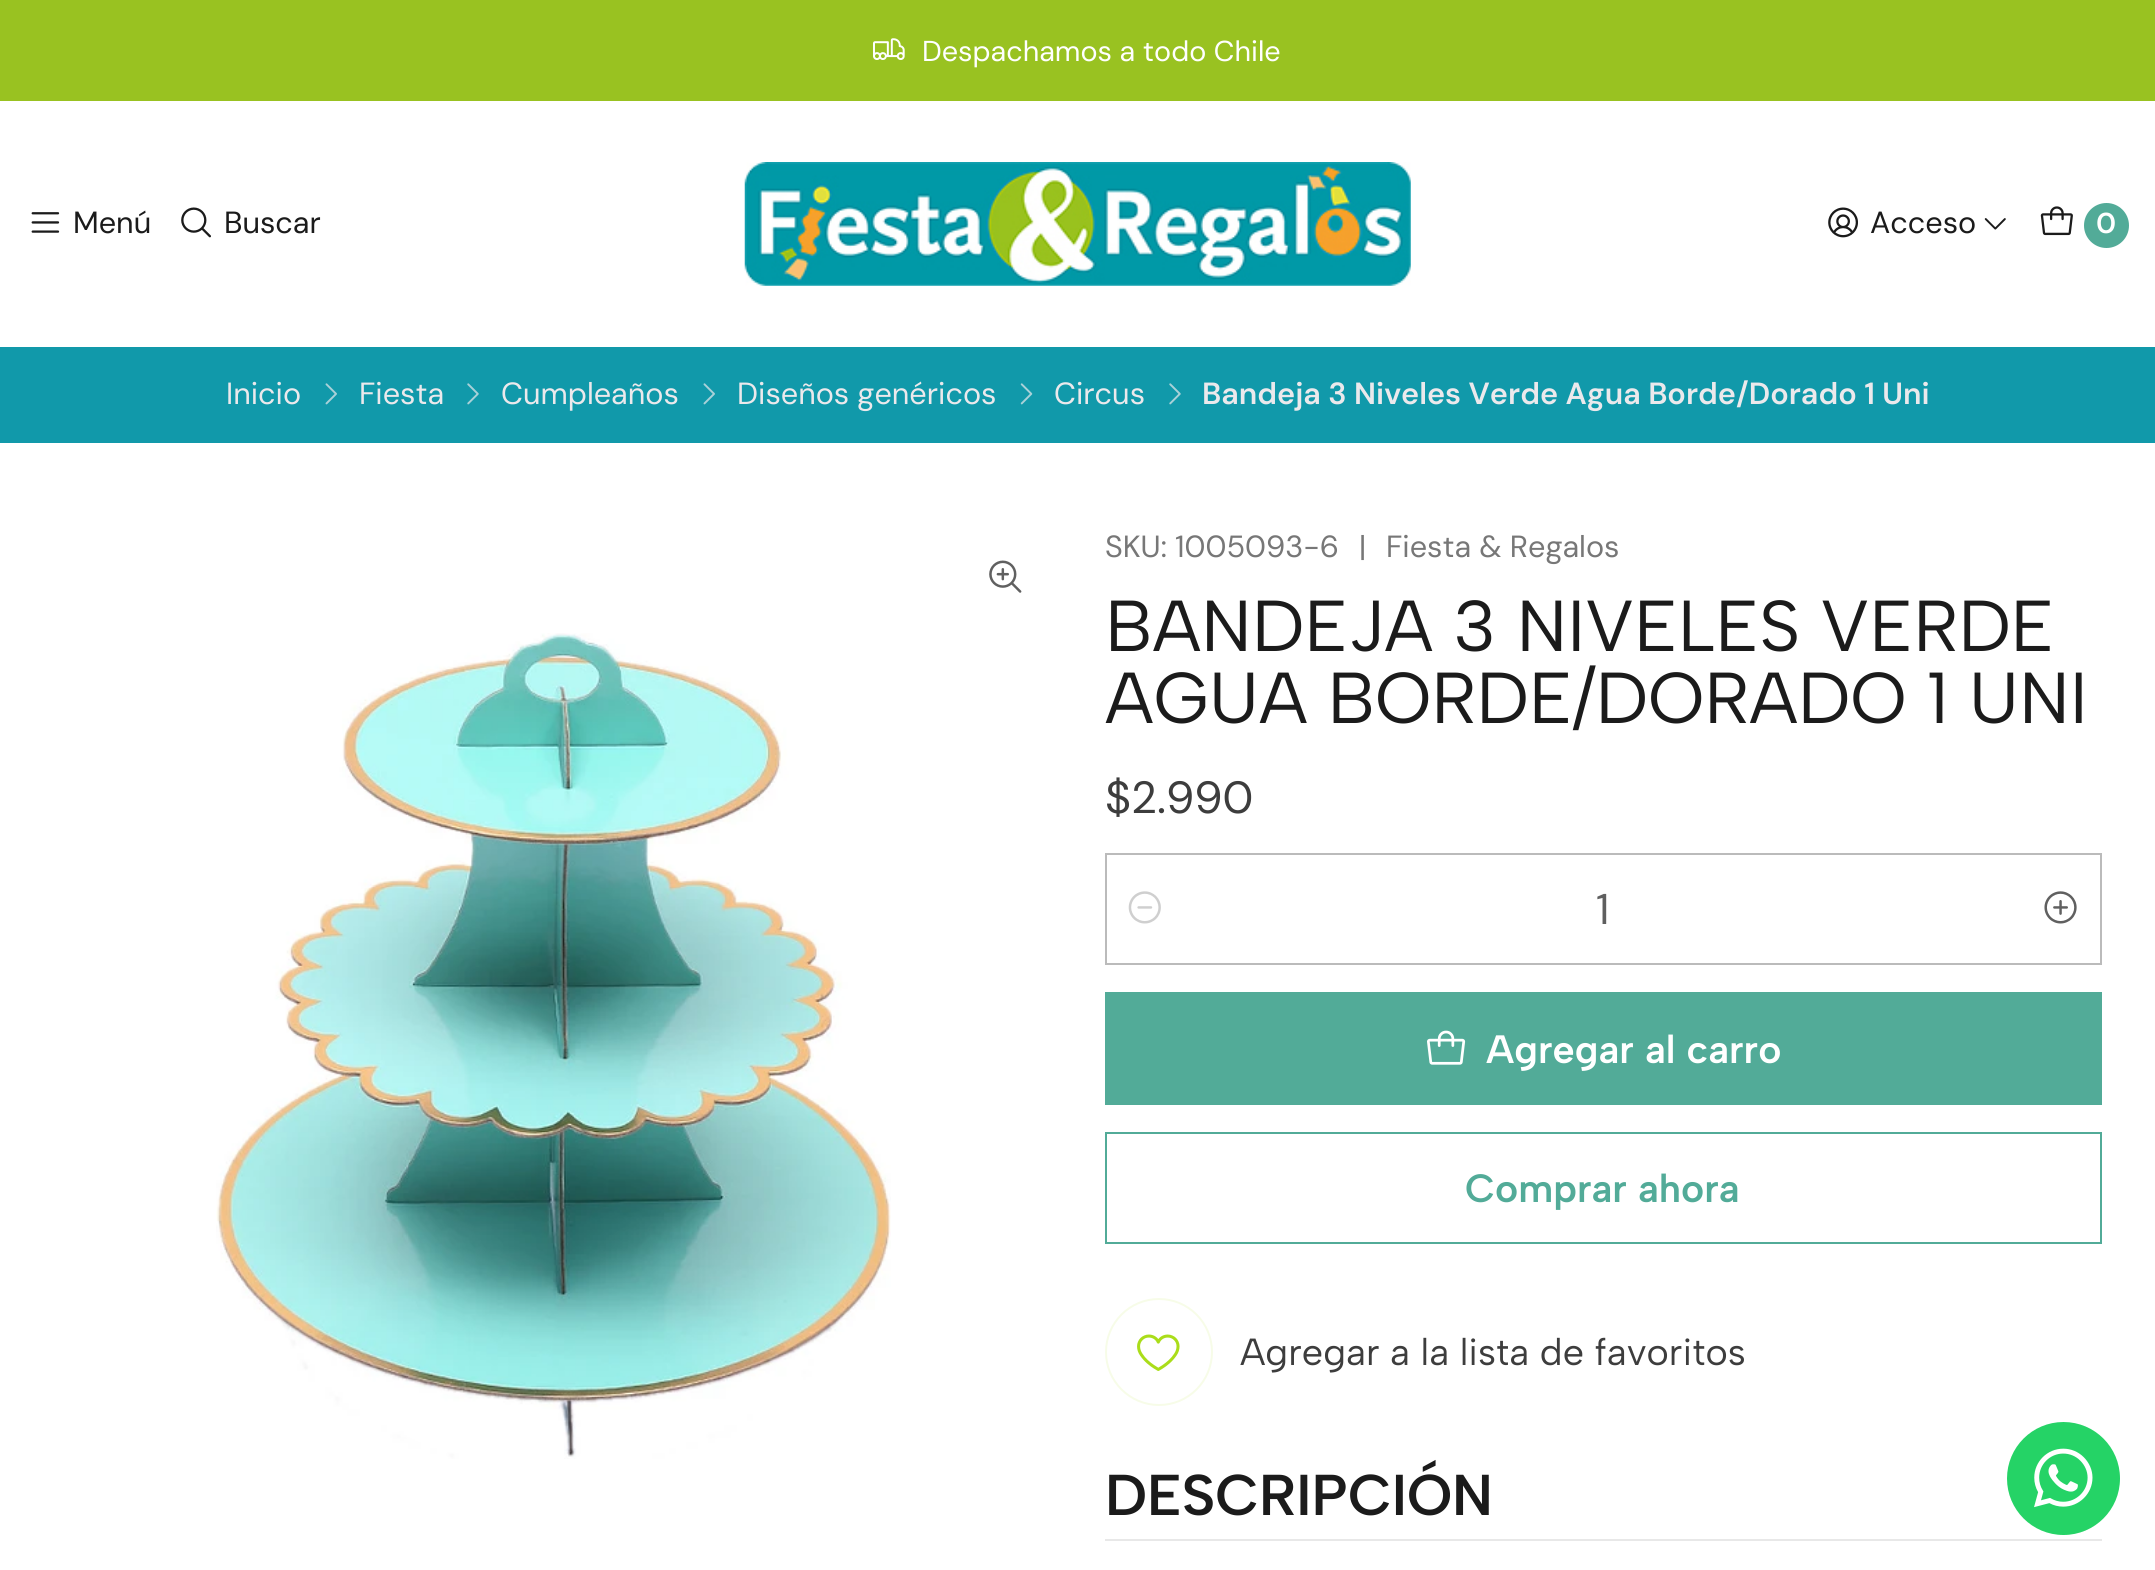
import math
import cairocffi as cairo

surface = cairo.ImageSurface(cairo.FORMAT_RGB24, 2155, 1570)
cr = cairo.Context(surface)
options = cairo.FontOptions()
options.set_hint_metrics(cairo.HINT_METRICS_OFF)
options.set_hint_style(cairo.HINT_STYLE_NONE)
cr.set_font_options(options)
cr.set_miter_limit(4)


def use_color(code):
    cr.set_source_rgb(*(v / 255 for v in bytes.fromhex(code[-6:])))


def picture(path, x, y, w, h):
    cr.save()
    cr.set_source_surface(cairo.ImageSurface.create_from_png(path), x, y)
    cr.rectangle(x, y, w, h)
    cr.fill()
    cr.restore()


use_color("#ffffff")
cr.paint()
use_color("#99c221")
cr.rectangle(0, 0, 2155, 101)
cr.fill()
picture("img1.png", 873, 38, 32, 22)
cr.select_font_face("DM Sans")
cr.set_font_size(28.75)
use_color("#ffffff")
cr.move_to(922, 61)
cr.show_text("Despachamos a todo Chile")
picture("img2.png", 31, 212, 29, 21)
cr.set_font_size(30.6)
use_color("#1b1b1b")
cr.move_to(73, 233)
cr.show_text("Menú")
picture("img3.png", 181, 207, 30, 31)
cr.move_to(224, 233)
cr.show_text("Buscar")
picture("img4.png", 744, 162, 667, 124)
picture("img5.png", 1828, 207, 30, 31)
cr.move_to(1870, 233)
cr.show_text("Acceso")
picture("img6.png", 1984, 218, 22, 12)
picture("img7.png", 2040, 206, 33, 30)
use_color("#52ab98")
cr.arc(2106.5, 225.5, 22.5, 0, 2 * math.pi)
cr.fill()
cr.select_font_face("DM Sans SemiBold")
cr.set_font_size(28.75)
use_color("#ffffff")
cr.move_to(2096, 233)
cr.show_text("0")
use_color("#1199aa")
cr.rectangle(0, 347, 2155, 96)
cr.fill()
cr.select_font_face("DM Sans")
cr.set_font_size(30.6)
use_color("#ebe9ec")
cr.move_to(226, 404)
cr.show_text("Inicio")
picture("img8.png", 325, 383, 12, 22)
cr.move_to(359, 404)
cr.show_text("Fiesta")
picture("img9.png", 467, 383, 12, 22)
cr.move_to(501, 404)
cr.show_text("Cumpleaños")
picture("img8.png", 703, 383, 12, 22)
cr.move_to(737, 404)
cr.show_text("Diseños genéricos")
picture("img10.png", 1020, 383, 13, 22)
cr.move_to(1054, 404)
cr.show_text("Circus")
picture("img9.png", 1169, 383, 12, 22)
cr.select_font_face("DM Sans SemiBold")
cr.move_to(1202, 404)
cr.show_text("Bandeja 3 Niveles Verde Agua Borde/Dorado 1 Uni")
picture("img11.png", 989, 560, 33, 33)
picture("img12.png", 216, 633, 675, 826)
cr.select_font_face("DM Sans")
use_color("#777777")
cr.move_to(1105, 557)
cr.show_text("SKU: 1005093-6")
cr.move_to(1359, 557)
cr.show_text("|")
cr.move_to(1386, 557)
cr.show_text("Fiesta & Regalos")
cr.select_font_face("Albert Sans")
cr.set_font_size(72)
use_color("#1b1b1b")
cr.move_to(1105, 651)
cr.show_text("BANDEJA 3 NIVELES VERDE")
cr.move_to(1105, 723)
cr.show_text("AGUA BORDE/DORADO 1 UNI")
cr.select_font_face("DM Sans")
cr.set_font_size(45)
use_color("#3d3d3d")
cr.move_to(1105, 813)
cr.show_text("$2.990")
cr.rectangle(1106, 854, 995, 110)
use_color("#bbbbbb")
cr.stroke()
picture("img13.png", 1128, 891, 33, 33)
cr.set_font_size(43)
use_color("#5f5f5f")
cr.move_to(1596, 924)
cr.show_text("1")
picture("img14.png", 2044, 891, 33, 33)
use_color("#52ab98")
cr.rectangle(1105, 992, 997, 113)
cr.fill()
picture("img15.png", 1427, 1030, 39, 35)
cr.select_font_face("Albert Sans SemiBold")
cr.set_font_size(39.5)
use_color("#ffffff")
cr.move_to(1486, 1063)
cr.show_text("Agregar al carro")
cr.rectangle(1106, 1133, 995, 110)
use_color("#52ab98")
cr.stroke()
cr.move_to(1465, 1202)
cr.show_text("Comprar ahora")
cr.new_path()
cr.arc(1159, 1352, 53, 0, 2 * math.pi)
use_color("#f7fce8")
cr.stroke()
picture("img16.png", 1137, 1334, 43, 37)
cr.select_font_face("Albert Sans")
cr.set_font_size(37.75)
use_color("#3d3d3d")
cr.move_to(1240, 1365)
cr.show_text("Agregar a la lista de favoritos")
use_color("#e8e8e8")
cr.rectangle(1105, 1539, 997, 2)
cr.fill()
cr.select_font_face("Albert Sans SemiBold")
cr.set_font_size(57.5)
use_color("#1b1b1b")
cr.move_to(1105, 1515)
cr.show_text("DESCRIPCIÓN")
use_color("#25d366")
cr.new_path()
cr.arc(2063.5, 1478.5, 56.5, 0, 2 * math.pi)
cr.fill()
picture("img17.png", 2034, 1448, 59, 60)
surface.write_to_png("result.png")
